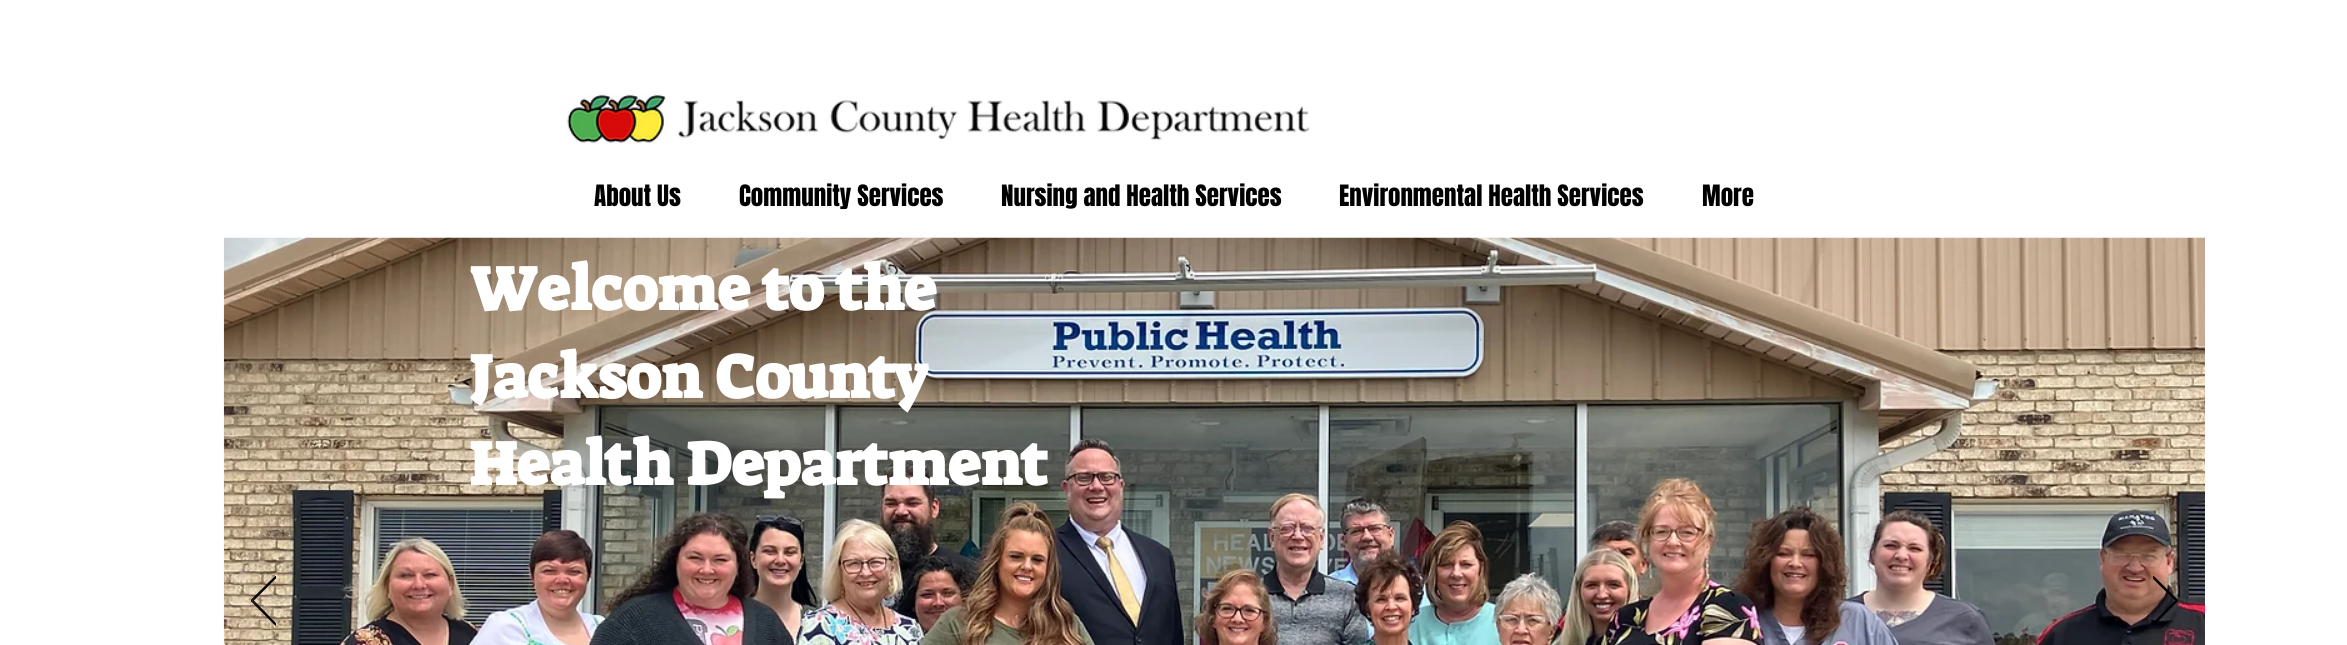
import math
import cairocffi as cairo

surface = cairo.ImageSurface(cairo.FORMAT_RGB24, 2347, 645)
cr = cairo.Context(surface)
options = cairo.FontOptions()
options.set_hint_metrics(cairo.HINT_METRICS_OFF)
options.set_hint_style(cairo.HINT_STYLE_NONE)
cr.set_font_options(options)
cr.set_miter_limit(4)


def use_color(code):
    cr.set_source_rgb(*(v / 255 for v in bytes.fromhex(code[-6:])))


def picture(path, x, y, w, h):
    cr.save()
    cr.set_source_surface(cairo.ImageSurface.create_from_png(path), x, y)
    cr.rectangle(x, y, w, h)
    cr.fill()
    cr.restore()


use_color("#ffffff")
cr.paint()
picture("img1.png", 567, 94, 743, 49)
cr.select_font_face("Anton")
cr.set_font_size(25)
use_color("#000000")
cr.move_to(594, 206)
cr.show_text("About Us")
cr.move_to(739, 206)
cr.show_text("Community Services")
cr.move_to(1001, 206)
cr.show_text("Nursing and Health Services")
cr.move_to(1339, 206)
cr.show_text("Environmental Health Services")
cr.move_to(1702, 206)
cr.show_text("More")
picture("img2.png", 223, 237, 1982, 408)
cr.select_font_face("Suez One", cairo.FONT_SLANT_NORMAL, cairo.FONT_WEIGHT_BOLD)
cr.set_font_size(62.5)
use_color("#ffffff")
cr.move_to(469, 310)
cr.show_text("Welcome to the")
cr.move_to(469, 398)
cr.show_text("Jackson County")
cr.move_to(469, 485)
cr.show_text("Health Department")
cr.save()
cr.rectangle(251, 576, 25, 50)
cr.clip()
cr.new_path()
cr.move_to(275.5, 625)
cr.line_to(251, 600.5)
cr.line_to(275.5, 576.5)
cr.line_to(276, 577.5)
cr.line_to(253, 600.5)
cr.line_to(276, 624)
cr.close_path()
use_color("#000000")
cr.set_line_width(1.2)
cr.stroke()
cr.restore()
use_color("#000000")
cr.new_path()
cr.move_to(2153, 625)
cr.line_to(2178, 601)
cr.line_to(2153, 577)
cr.line_to(2176, 601)
cr.line_to(2153, 624)
cr.close_path()
cr.fill()
cr.save()
cr.rectangle(2153, 576, 25, 50)
cr.clip()
cr.new_path()
cr.move_to(2153.5, 625)
cr.line_to(2177.5, 600.5)
cr.line_to(2153.5, 576.5)
cr.line_to(2152.5, 577.5)
cr.line_to(2176, 600.5)
cr.line_to(2152.5, 624)
cr.close_path()
cr.set_line_width(1.2)
cr.stroke()
cr.restore()
surface.write_to_png("result.png")
